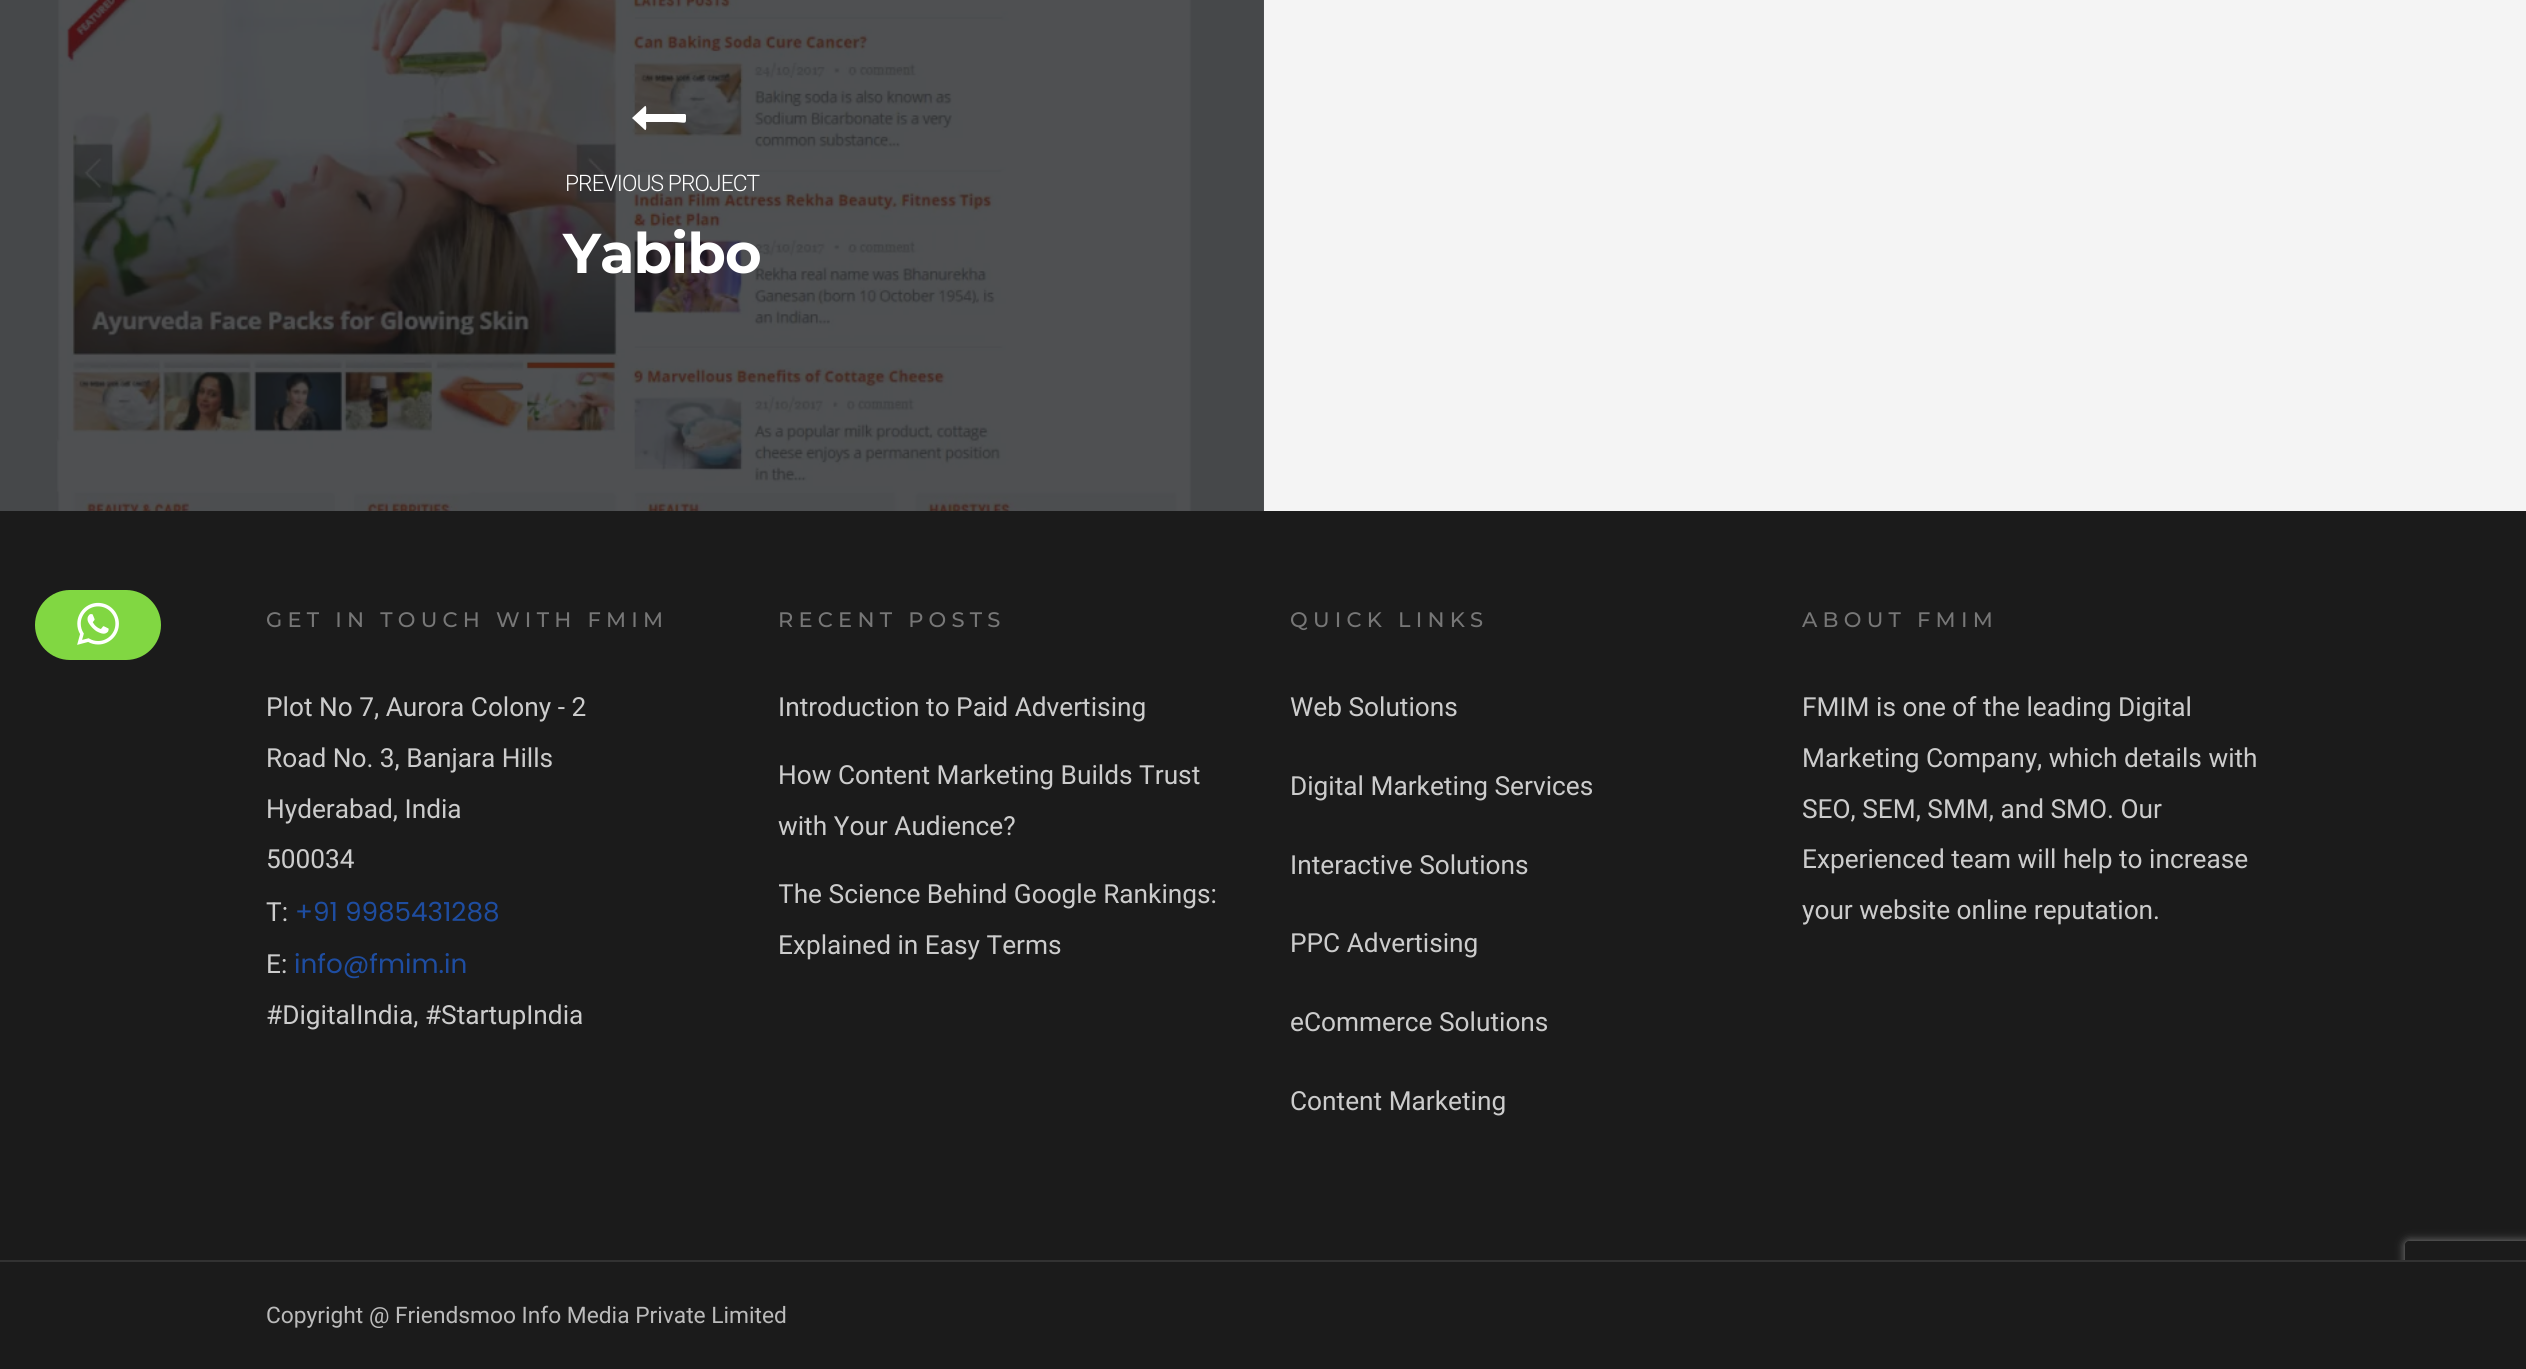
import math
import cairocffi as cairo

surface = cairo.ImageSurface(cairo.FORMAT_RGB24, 2526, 1369)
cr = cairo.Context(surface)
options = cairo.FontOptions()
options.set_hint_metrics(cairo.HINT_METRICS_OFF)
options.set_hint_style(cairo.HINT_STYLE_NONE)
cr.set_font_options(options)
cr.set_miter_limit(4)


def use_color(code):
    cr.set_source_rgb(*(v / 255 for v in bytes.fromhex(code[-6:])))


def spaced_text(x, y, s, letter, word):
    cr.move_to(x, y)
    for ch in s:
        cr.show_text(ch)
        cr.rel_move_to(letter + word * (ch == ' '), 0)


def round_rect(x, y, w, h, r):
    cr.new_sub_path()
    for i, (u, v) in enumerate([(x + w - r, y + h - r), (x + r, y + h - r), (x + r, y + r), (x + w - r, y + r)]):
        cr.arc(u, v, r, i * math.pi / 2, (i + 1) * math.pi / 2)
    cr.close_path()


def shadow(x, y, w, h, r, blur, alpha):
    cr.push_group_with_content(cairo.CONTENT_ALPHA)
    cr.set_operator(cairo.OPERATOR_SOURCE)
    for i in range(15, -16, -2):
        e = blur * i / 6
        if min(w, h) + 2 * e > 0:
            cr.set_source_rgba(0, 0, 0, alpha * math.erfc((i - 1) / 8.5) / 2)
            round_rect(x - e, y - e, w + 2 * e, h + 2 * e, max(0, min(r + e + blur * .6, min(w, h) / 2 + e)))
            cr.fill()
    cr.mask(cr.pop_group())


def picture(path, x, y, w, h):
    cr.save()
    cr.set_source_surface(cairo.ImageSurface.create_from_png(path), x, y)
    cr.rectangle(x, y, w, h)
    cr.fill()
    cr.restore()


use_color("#f4f4f4")
cr.paint()
use_color("#1b1b1b")
cr.rectangle(0, 511, 2526, 749)
cr.fill()
use_color("#81d742")
round_rect(35, 590, 126, 70, 35)
cr.fill()
picture("img1.png", 77, 602, 42, 43)
use_color("#4c4e50")
cr.rectangle(1263, 0, 1, 511)
cr.fill()
picture("img2.png", 0, 0, 1264, 511)
use_color("#ffffff")
cr.new_path()
cr.move_to(686, 115)
cr.curve_to(686, 126, 687, 122, 672, 122)
cr.line_to(646, 122)
cr.curve_to(646, 123, 647, 131, 645, 130)
cr.line_to(632, 118)
cr.line_to(645, 106)
cr.curve_to(647, 105, 646, 113, 646, 114)
cr.line_to(685, 114)
cr.close_path()
cr.fill()
cr.select_font_face("Roboto Light")
cr.set_font_size(22.75)
spaced_text(565, 191, "PREVIOUS PROJECT", -0.9, 0)
cr.select_font_face("Montserrat", cairo.FONT_SLANT_NORMAL, cairo.FONT_WEIGHT_BOLD)
cr.set_font_size(56)
spaced_text(563, 273, "Yabibo", -0.9, 0)
cr.select_font_face("Montserrat Medium")
cr.set_font_size(21)
use_color("#777777")
spaced_text(266, 627, "GET IN TOUCH WITH FMIM", 5.25, 0)
cr.select_font_face("Roboto")
cr.set_font_size(26.25)
use_color("#cccccc")
cr.move_to(266, 716)
cr.show_text("Plot No 7, Aurora Colony - 2")
cr.move_to(266, 767)
cr.show_text("Road No. 3, Banjara Hills")
cr.move_to(266, 818)
cr.show_text("Hyderabad, India")
cr.move_to(266, 868)
cr.show_text("500034")
cr.move_to(266, 921)
cr.show_text("T:")
cr.select_font_face("Poppins")
use_color("#1e4da1")
cr.move_to(295, 921)
cr.show_text("+91 9985431288")
cr.select_font_face("Roboto")
use_color("#cccccc")
cr.move_to(266, 973)
cr.show_text("E:")
cr.select_font_face("Poppins")
use_color("#1e4da1")
cr.move_to(294, 973)
cr.show_text("info@fmim.in")
cr.select_font_face("Roboto")
use_color("#cccccc")
cr.move_to(266, 1024)
cr.show_text("#DigitalIndia, #StartupIndia")
cr.select_font_face("Montserrat Medium")
cr.set_font_size(21)
use_color("#777777")
spaced_text(778, 627, "RECENT POSTS", 5.25, 0)
cr.select_font_face("Roboto")
cr.set_font_size(26.25)
use_color("#cccccc")
cr.move_to(778, 716)
cr.show_text("Introduction to Paid Advertising")
cr.move_to(778, 784)
cr.show_text("How Content Marketing Builds Trust")
cr.move_to(778, 835)
cr.show_text("with Your Audience?")
cr.save()
cr.rectangle(779, 870, 458, 119)
cr.clip()
cr.move_to(778, 903)
cr.show_text("The Science Behind Google Rankings:")
cr.restore()
cr.move_to(778, 954)
cr.show_text("Explained in Easy Terms")
cr.select_font_face("Montserrat Medium")
cr.set_font_size(21)
use_color("#777777")
spaced_text(1290, 627, "QUICK LINKS", 5.25, 0)
cr.select_font_face("Roboto")
cr.set_font_size(26.25)
use_color("#cccccc")
cr.move_to(1290, 716)
cr.show_text("Web Solutions")
cr.move_to(1290, 795)
cr.show_text("Digital Marketing Services")
cr.move_to(1290, 874)
cr.show_text("Interactive Solutions")
cr.move_to(1290, 952)
cr.show_text("PPC Advertising")
cr.move_to(1290, 1031)
cr.show_text("eCommerce Solutions")
cr.move_to(1290, 1110)
cr.show_text("Content Marketing")
cr.select_font_face("Montserrat Medium")
cr.set_font_size(21)
use_color("#777777")
spaced_text(1802, 627, "ABOUT FMIM", 5.25, 0)
cr.select_font_face("Roboto")
cr.set_font_size(26.25)
use_color("#cccccc")
cr.move_to(1802, 716)
cr.show_text("FMIM is one of the leading Digital")
cr.move_to(1802, 767)
cr.show_text("Marketing Company, which details with")
cr.move_to(1802, 818)
cr.show_text("SEO, SEM, SMM, and SMO. Our")
cr.move_to(1802, 868)
cr.show_text("Experienced team will help to increase")
cr.move_to(1802, 919)
cr.show_text("your website online reputation.")
cr.save()
cr.set_fill_rule(cairo.FILL_RULE_EVEN_ODD)
cr.new_path()
cr.move_to(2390, 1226)
cr.line_to(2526, 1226)
cr.line_to(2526, 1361)
cr.line_to(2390, 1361)
cr.close_path()
cr.move_to(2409, 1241)
cr.line_to(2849, 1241)
cr.curve_to(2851, 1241, 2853, 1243, 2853, 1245)
cr.line_to(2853, 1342)
cr.curve_to(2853, 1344, 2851, 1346, 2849, 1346)
cr.line_to(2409, 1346)
cr.curve_to(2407, 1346, 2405, 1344, 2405, 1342)
cr.line_to(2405, 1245)
cr.curve_to(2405, 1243, 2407, 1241, 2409, 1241)
cr.close_path()
cr.clip()
use_color("#808080")
shadow(2405, 1241, 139, 105, 4, 4.5, 1)
cr.restore()
use_color("#1b1b1b")
cr.rectangle(0, 1262, 2526, 107)
cr.fill()
use_color("#323232")
cr.rectangle(0, 1260, 2526, 2)
cr.fill()
cr.set_font_size(22.75)
use_color("#bbbbbb")
cr.move_to(266, 1323)
cr.show_text("Copyright @ Friendsmoo Info Media Private Limited")
surface.write_to_png("result.png")
